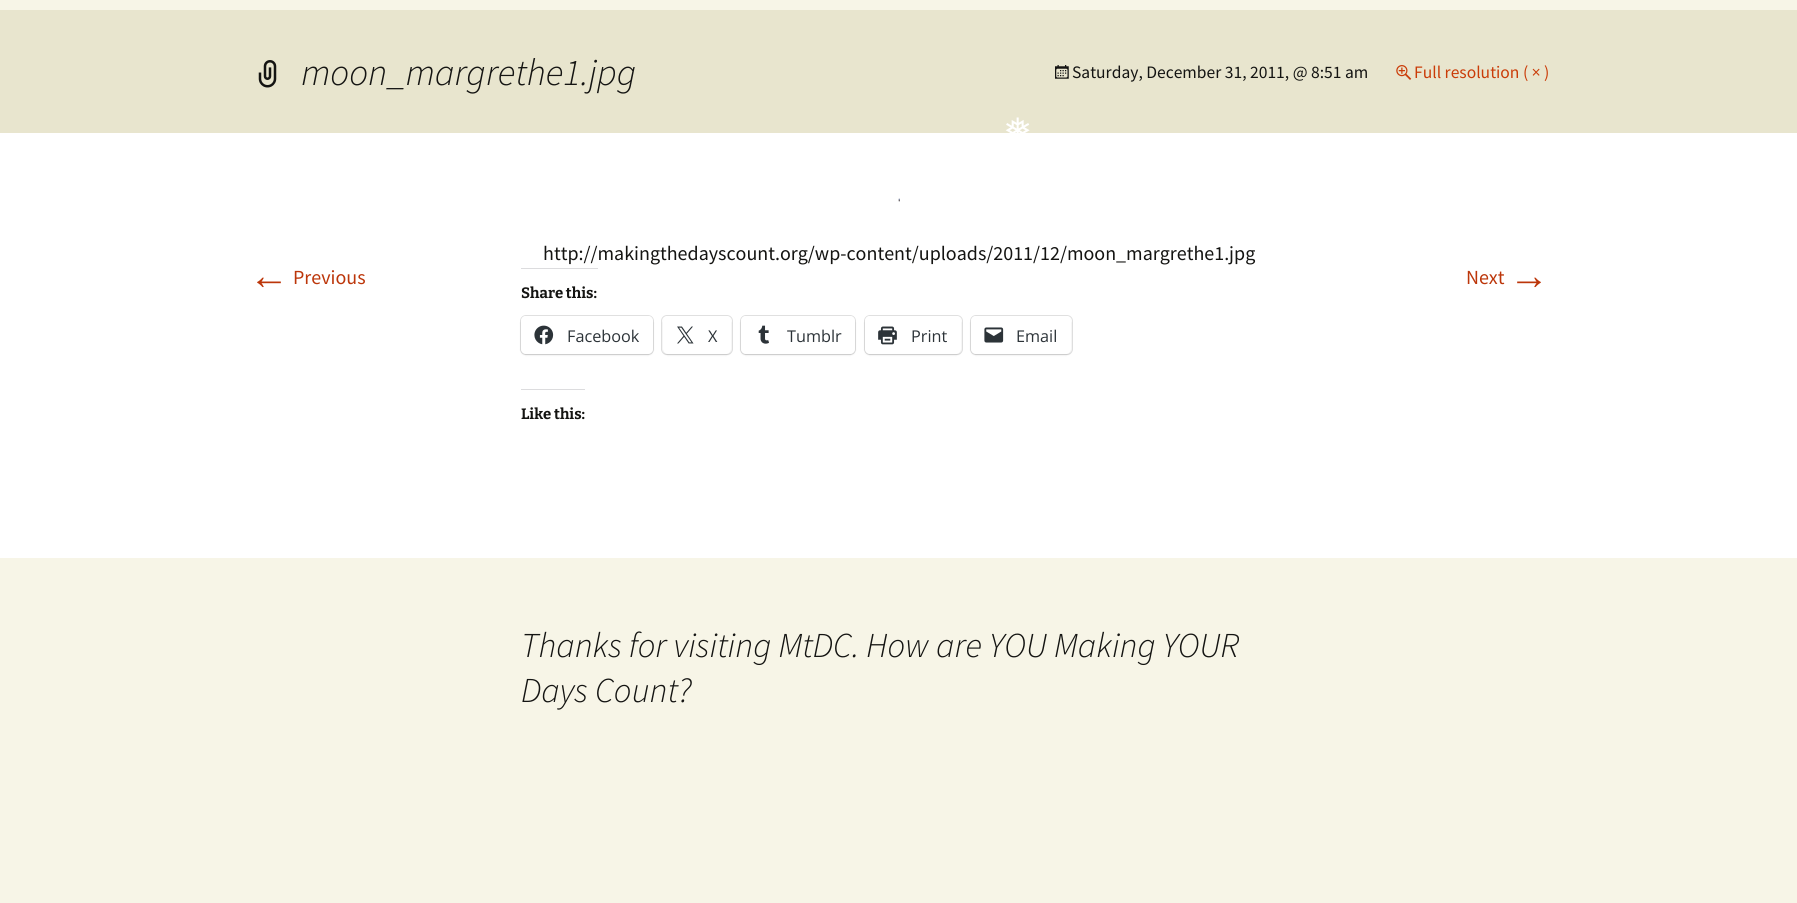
import math
import cairocffi as cairo

surface = cairo.ImageSurface(cairo.FORMAT_RGB24, 1797, 903)
cr = cairo.Context(surface)
options = cairo.FontOptions()
options.set_hint_metrics(cairo.HINT_METRICS_OFF)
options.set_hint_style(cairo.HINT_STYLE_NONE)
cr.set_font_options(options)
cr.set_miter_limit(4)


def use_color(code):
    cr.set_source_rgb(*(v / 255 for v in bytes.fromhex(code[-6:])))


def round_rect(x, y, w, h, r):
    cr.new_sub_path()
    for i, (u, v) in enumerate([(x + w - r, y + h - r), (x + r, y + h - r), (x + r, y + r), (x + w - r, y + r)]):
        cr.arc(u, v, r, i * math.pi / 2, (i + 1) * math.pi / 2)
    cr.close_path()


def shadow(x, y, w, h, r, blur, alpha):
    cr.push_group_with_content(cairo.CONTENT_ALPHA)
    cr.set_operator(cairo.OPERATOR_SOURCE)
    for i in range(15, -16, -2):
        e = blur * i / 6
        if min(w, h) + 2 * e > 0:
            cr.set_source_rgba(0, 0, 0, alpha * math.erfc((i - 1) / 8.5) / 2)
            round_rect(x - e, y - e, w + 2 * e, h + 2 * e, max(0, min(r + e + blur * .6, min(w, h) / 2 + e)))
            cr.fill()
    cr.mask(cr.pop_group())


def picture(path, x, y, w, h):
    cr.save()
    cr.set_source_surface(cairo.ImageSurface.create_from_png(path), x, y)
    cr.rectangle(x, y, w, h)
    cr.fill()
    cr.restore()


use_color("#f7f5e7")
cr.paint()
use_color("#e8e5ce")
cr.rectangle(0, 10, 1797, 123)
cr.fill()
picture("img1.png", 258, 60, 19, 28)
cr.select_font_face("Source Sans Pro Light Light", cairo.FONT_SLANT_ITALIC)
cr.set_font_size(37.5)
use_color("#141412")
cr.move_to(301, 85)
cr.show_text("moon_margrethe1.jpg")
picture("img2.png", 1055, 65, 14, 14)
cr.select_font_face("Source Sans Pro")
cr.set_font_size(17.5)
cr.move_to(1072, 78)
cr.show_text("Saturday, December 31, 2011, @ 8:51 am")
picture("img3.png", 1396, 65, 16, 15)
use_color("#ca3c08")
cr.move_to(1414, 78)
cr.show_text("Full resolution ( × )")
use_color("#ffffff")
cr.rectangle(0, 133, 1797, 425)
cr.fill()
picture("img4.png", 898, 198, 2, 4)
cr.set_font_size(20)
use_color("#141412")
cr.move_to(543, 260)
cr.show_text("http://makingthedayscount.org/wp-content/uploads/2011/12/moon_margrethe1.jpg")
use_color("#dcdcde")
cr.rectangle(521, 268, 77, 1)
cr.fill()
cr.select_font_face("Bitter Thin")
cr.set_font_size(15)
use_color("#141412")
cr.move_to(521, 298)
cr.show_text("Share this:")
round_rect(520.5, 315.5, 133, 39, 5.5)
use_color("#e0e0e0")
cr.set_line_width(1)
cr.stroke()
use_color("#000000")
shadow(521, 318, 132, 37, 5, 1, 0.12)
use_color("#ffffff")
round_rect(521, 316, 132, 38, 5)
cr.fill()
picture("img5.png", 534, 325, 20, 20)
cr.select_font_face("Open Sans")
cr.set_font_size(16.25)
use_color("#2c3338")
cr.move_to(567, 342)
cr.show_text("Facebook")
round_rect(661.5, 315.5, 71, 39, 5.5)
use_color("#e0e0e0")
cr.stroke()
use_color("#000000")
shadow(663, 318, 68, 37, 5, 1, 0.12)
use_color("#ffffff")
round_rect(663, 316, 68, 38, 5)
cr.fill()
picture("img6.png", 677, 326, 17, 18)
use_color("#2c3338")
cr.move_to(708, 342)
cr.show_text("X")
round_rect(740.5, 315.5, 115, 39, 5.5)
use_color("#e0e0e0")
cr.stroke()
use_color("#000000")
shadow(741, 318, 114, 37, 5, 1, 0.12)
use_color("#ffffff")
round_rect(741, 316, 114, 38, 5)
cr.fill()
picture("img7.png", 758, 325, 11, 19)
use_color("#2c3338")
cr.move_to(787, 342)
cr.show_text("Tumblr")
round_rect(864.5, 315.5, 98, 39, 5.5)
use_color("#e0e0e0")
cr.stroke()
use_color("#000000")
shadow(865, 318, 96, 37, 5, 1, 0.12)
use_color("#ffffff")
round_rect(865, 316, 96, 38, 5)
cr.fill()
picture("img8.png", 878, 326, 19, 19)
use_color("#2c3338")
cr.move_to(911, 342)
cr.show_text("Print")
round_rect(970.5, 315.5, 102, 39, 5.5)
use_color("#e0e0e0")
cr.stroke()
use_color("#000000")
shadow(971, 318, 100, 37, 5, 1, 0.12)
use_color("#ffffff")
round_rect(971, 316, 100, 38, 5)
cr.fill()
picture("img9.png", 984, 327, 20, 16)
use_color("#2c3338")
cr.move_to(1016, 342)
cr.show_text("Email")
use_color("#dcdcde")
cr.rectangle(521, 389, 64, 1)
cr.fill()
cr.select_font_face("Bitter Thin")
cr.set_font_size(15)
use_color("#141412")
cr.move_to(521, 419)
cr.show_text("Like this:")
cr.select_font_face("Liberation Sans")
cr.set_font_size(40)
use_color("#bc360a")
cr.move_to(249, 289)
cr.show_text("←")
cr.select_font_face("Source Sans Pro")
cr.set_font_size(20)
cr.move_to(293, 284)
cr.show_text("Previous")
cr.move_to(1466, 284)
cr.show_text("Next")
cr.select_font_face("Liberation Sans")
cr.set_font_size(40)
cr.move_to(1509, 289)
cr.show_text("→")
cr.select_font_face("Source Sans Pro Light Light", cairo.FONT_SLANT_ITALIC)
cr.set_font_size(35)
use_color("#141412")
cr.move_to(521, 657)
cr.show_text("Thanks for visiting MtDC. How are YOU Making YOUR")
cr.move_to(521, 702)
cr.show_text("Days Count?")
cr.select_font_face("DejaVu Sans")
use_color("#ffffff")
cr.move_to(1003, 143)
cr.show_text("❅")
surface.write_to_png("result.png")
